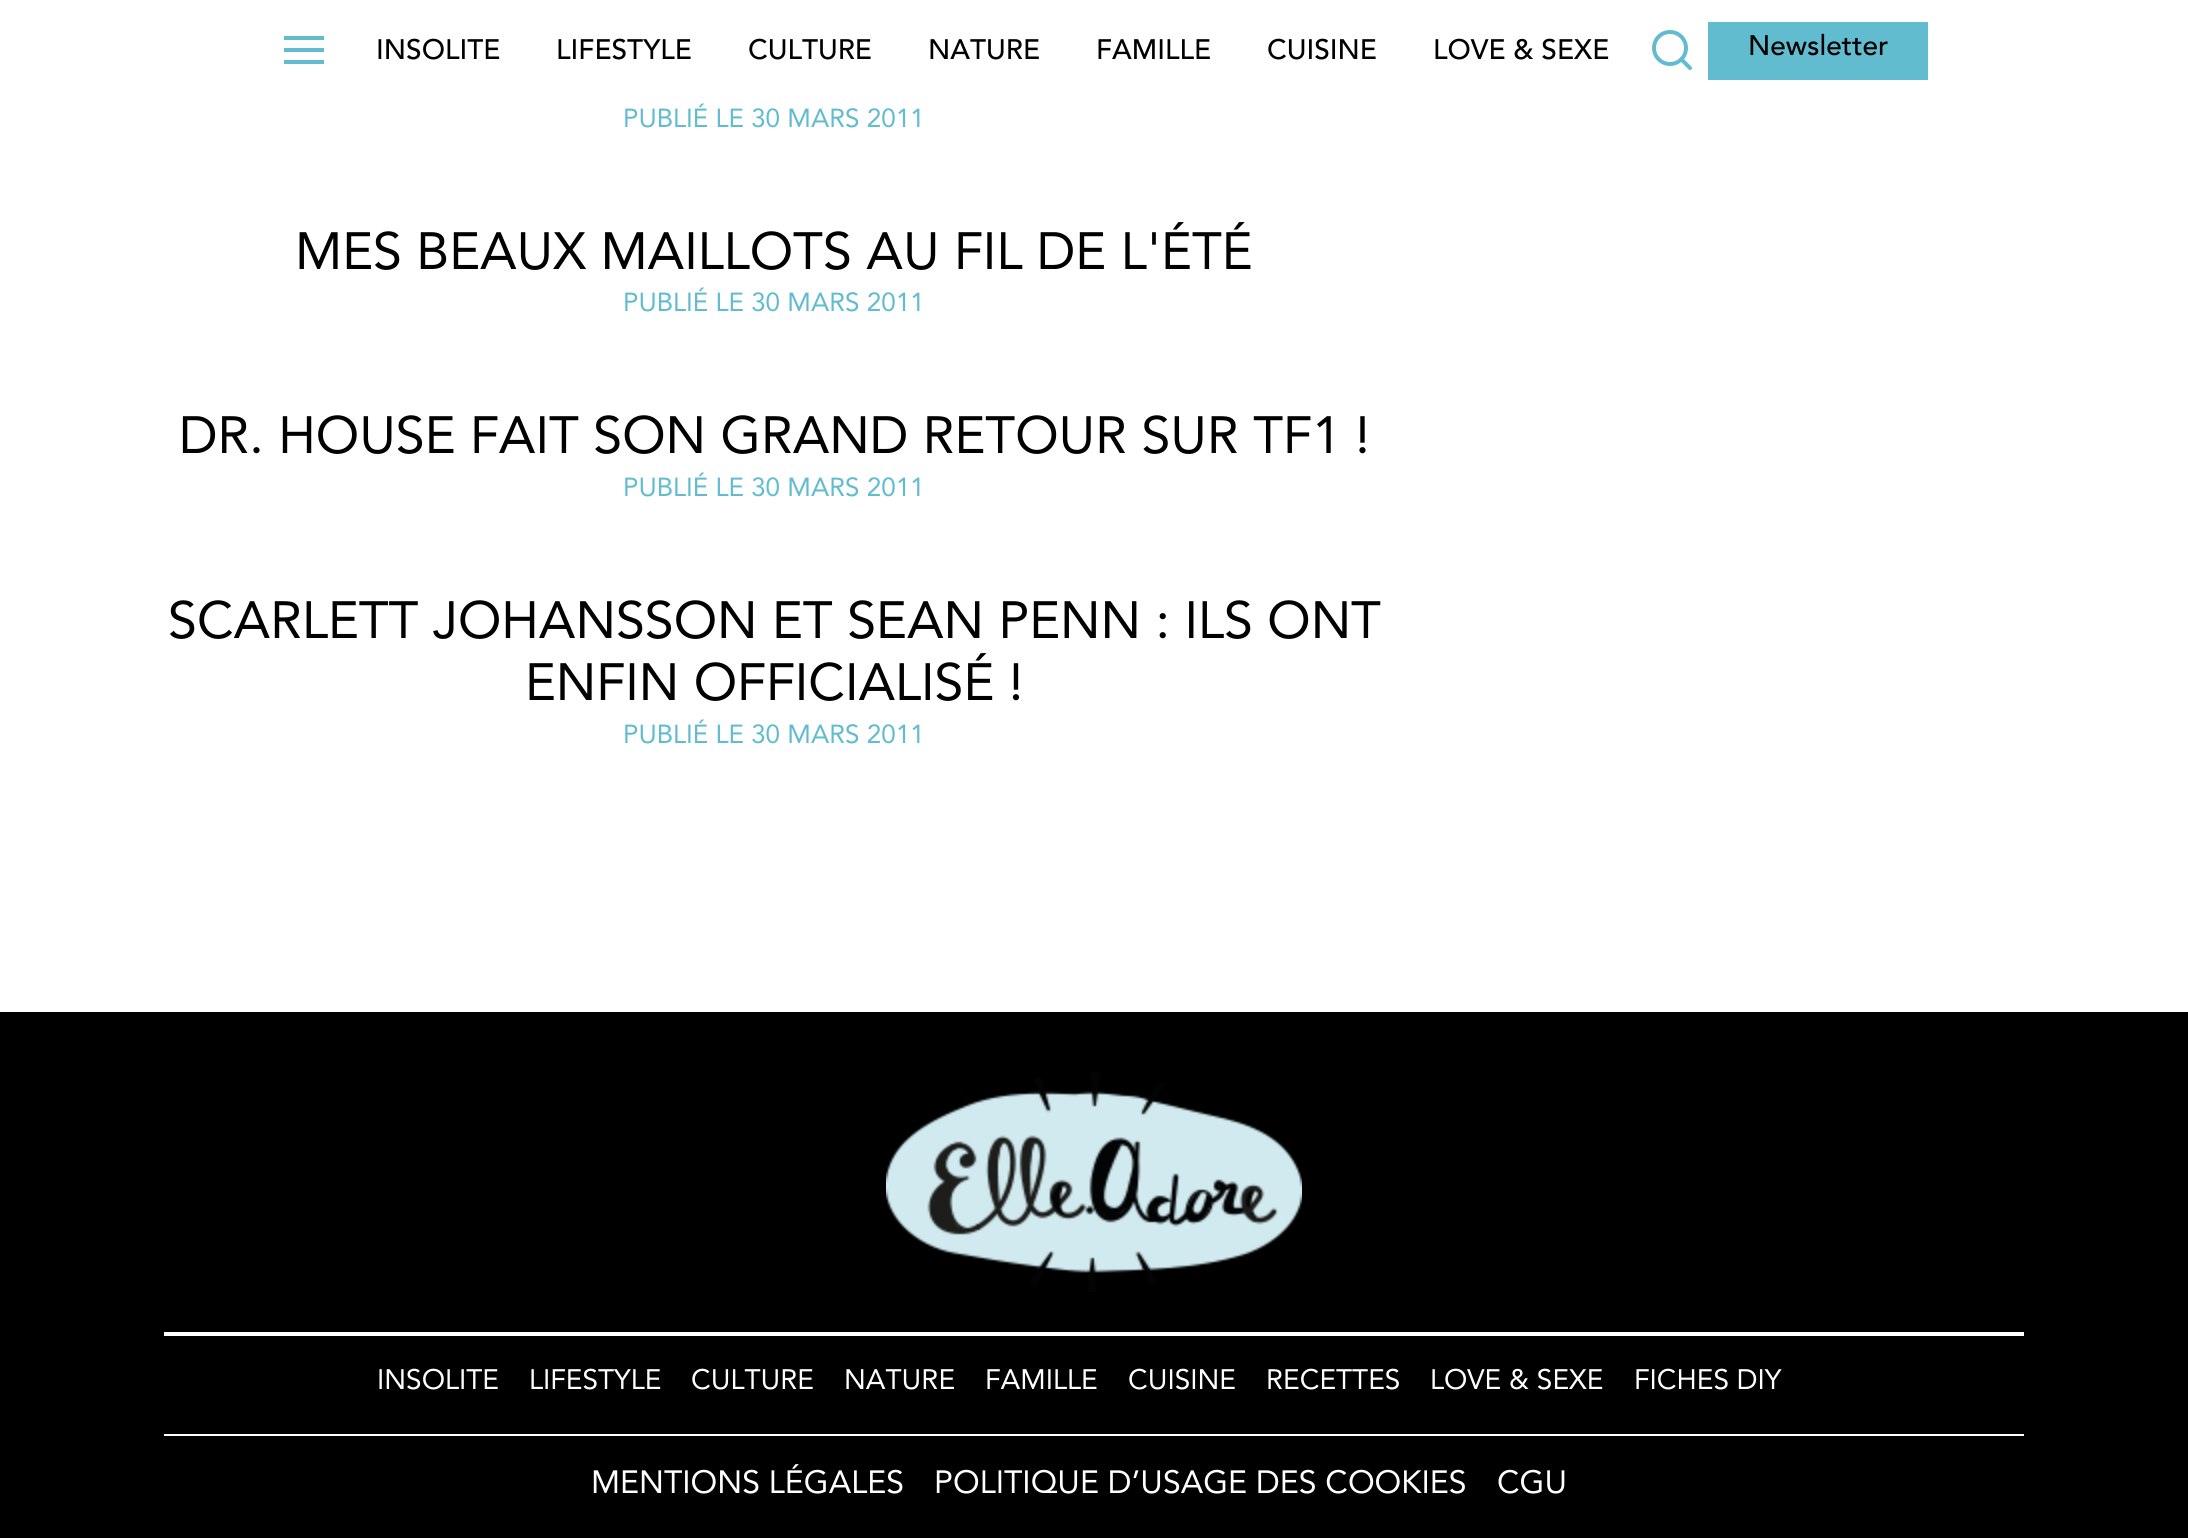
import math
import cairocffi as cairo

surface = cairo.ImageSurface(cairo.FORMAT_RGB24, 2188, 1538)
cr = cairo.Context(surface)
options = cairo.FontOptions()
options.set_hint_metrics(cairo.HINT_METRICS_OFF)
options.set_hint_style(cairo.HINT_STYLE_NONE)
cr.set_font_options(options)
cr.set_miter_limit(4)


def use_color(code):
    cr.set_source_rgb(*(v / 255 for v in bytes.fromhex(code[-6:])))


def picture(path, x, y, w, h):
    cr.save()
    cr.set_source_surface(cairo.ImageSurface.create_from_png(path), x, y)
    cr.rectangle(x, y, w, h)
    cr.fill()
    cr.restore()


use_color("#ffffff")
cr.paint()
use_color("#61bccf")
cr.rectangle(284, 36, 40, 4)
cr.fill()
cr.rectangle(284, 48, 40, 4)
cr.fill()
cr.rectangle(284, 60, 40, 4)
cr.fill()
cr.select_font_face("Avenir Medium")
cr.set_font_size(28)
use_color("#000000")
cr.move_to(376, 59)
cr.show_text("INSOLITE")
cr.move_to(556, 59)
cr.show_text("LIFESTYLE")
cr.move_to(748, 59)
cr.show_text("CULTURE")
cr.move_to(928, 59)
cr.show_text("NATURE")
cr.move_to(1096, 59)
cr.show_text("FAMILLE")
cr.move_to(1267, 59)
cr.show_text("CUISINE")
cr.move_to(1433, 59)
cr.show_text("LOVE & SEXE")
cr.new_path()
cr.arc(1670, 48, 16, 0, 2 * math.pi)
use_color("#61bccf")
cr.set_line_width(4)
cr.stroke()
cr.new_path()
cr.move_to(1690, 68)
cr.line_to(1681.5, 59.5)
cr.set_line_cap(cairo.LINE_CAP_ROUND)
cr.set_line_join(cairo.LINE_JOIN_ROUND)
cr.stroke()
cr.rectangle(1708, 22, 220, 58)
cr.fill()
use_color("#000000")
cr.move_to(1748, 55)
cr.show_text("Newsletter")
cr.select_font_face("Avenir")
cr.set_font_size(26)
use_color("#61bccf")
cr.move_to(623, 127)
cr.show_text("PUBLIÉ LE 30 MARS 2011")
cr.set_font_size(52)
use_color("#000000")
cr.move_to(295, 269)
cr.show_text("MES BEAUX MAILLOTS AU FIL DE L'ÉTÉ")
cr.set_font_size(26)
use_color("#61bccf")
cr.move_to(623, 311)
cr.show_text("PUBLIÉ LE 30 MARS 2011")
cr.set_font_size(52)
use_color("#000000")
cr.move_to(179, 453)
cr.show_text("DR. HOUSE FAIT SON GRAND RETOUR SUR TF1 !")
cr.set_font_size(26)
use_color("#61bccf")
cr.move_to(623, 496)
cr.show_text("PUBLIÉ LE 30 MARS 2011")
cr.set_font_size(52)
use_color("#000000")
cr.move_to(168, 638)
cr.show_text("SCARLETT JOHANSSON ET SEAN PENN : ILS ONT")
cr.move_to(525, 700)
cr.show_text("ENFIN OFFICIALISÉ !")
cr.set_font_size(26)
use_color("#61bccf")
cr.move_to(623, 743)
cr.show_text("PUBLIÉ LE 30 MARS 2011")
use_color("#000000")
cr.rectangle(0, 1012, 2188, 526)
cr.fill()
use_color("#ffffff")
cr.rectangle(164, 1332, 1860, 4)
cr.fill()
picture("img1.png", 886, 1072, 416, 220)
cr.set_font_size(28)
cr.move_to(377, 1389)
cr.show_text("INSOLITE")
cr.move_to(529, 1389)
cr.show_text("LIFESTYLE")
cr.move_to(691, 1389)
cr.show_text("CULTURE")
cr.move_to(844, 1389)
cr.show_text("NATURE")
cr.move_to(985, 1389)
cr.show_text("FAMILLE")
cr.move_to(1128, 1389)
cr.show_text("CUISINE")
cr.move_to(1266, 1389)
cr.show_text("RECETTES")
cr.move_to(1430, 1389)
cr.show_text("LOVE & SEXE")
cr.move_to(1634, 1389)
cr.show_text("FICHES DIY")
cr.rectangle(164, 1434, 1860, 2)
cr.fill()
cr.set_font_size(32)
cr.move_to(591, 1493)
cr.show_text("MENTIONS LÉGALES")
cr.move_to(934, 1493)
cr.show_text("POLITIQUE D’USAGE DES COOKIES")
cr.move_to(1497, 1493)
cr.show_text("CGU")
surface.write_to_png("result.png")
